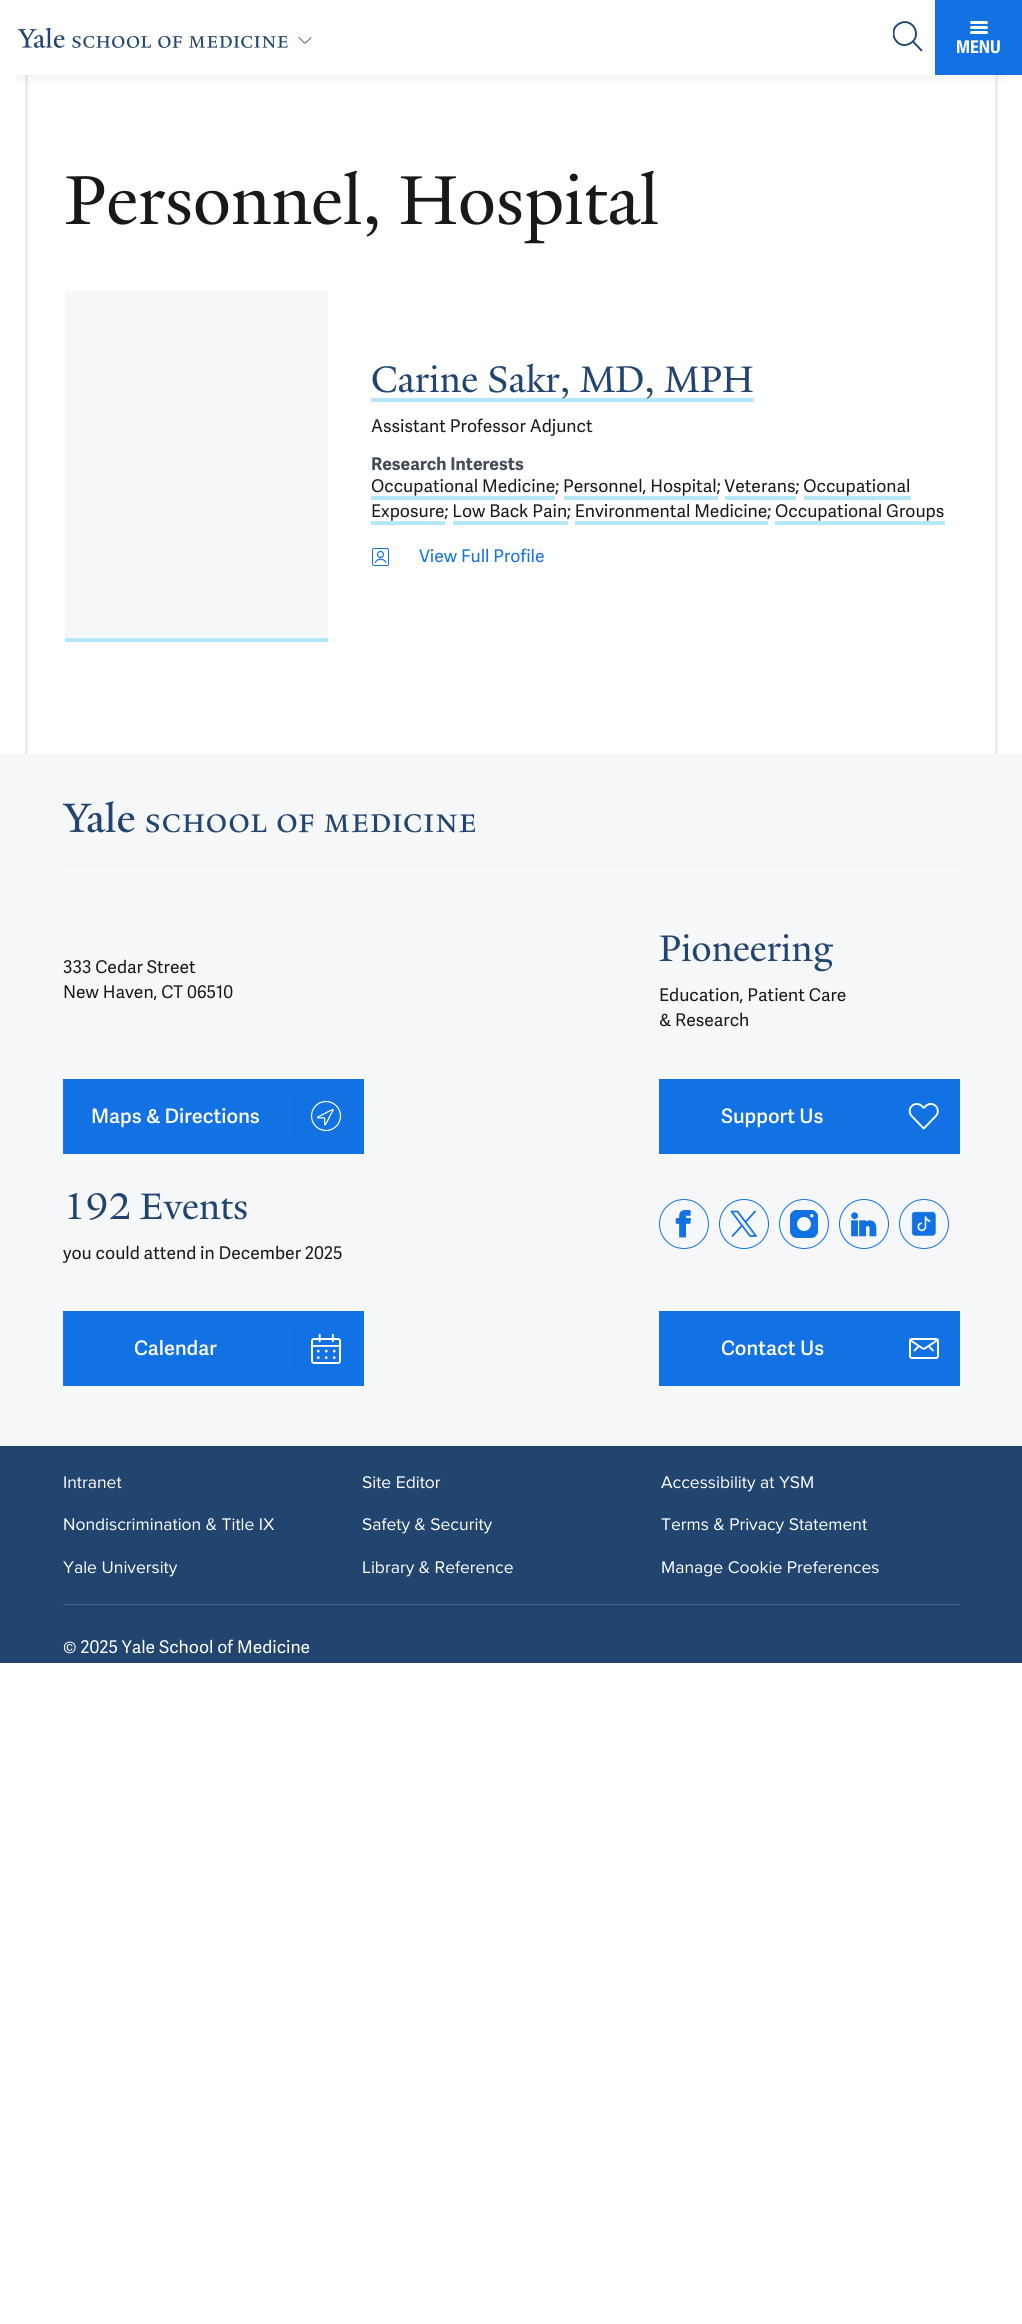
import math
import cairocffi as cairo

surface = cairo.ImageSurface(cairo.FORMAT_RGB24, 1022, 2324)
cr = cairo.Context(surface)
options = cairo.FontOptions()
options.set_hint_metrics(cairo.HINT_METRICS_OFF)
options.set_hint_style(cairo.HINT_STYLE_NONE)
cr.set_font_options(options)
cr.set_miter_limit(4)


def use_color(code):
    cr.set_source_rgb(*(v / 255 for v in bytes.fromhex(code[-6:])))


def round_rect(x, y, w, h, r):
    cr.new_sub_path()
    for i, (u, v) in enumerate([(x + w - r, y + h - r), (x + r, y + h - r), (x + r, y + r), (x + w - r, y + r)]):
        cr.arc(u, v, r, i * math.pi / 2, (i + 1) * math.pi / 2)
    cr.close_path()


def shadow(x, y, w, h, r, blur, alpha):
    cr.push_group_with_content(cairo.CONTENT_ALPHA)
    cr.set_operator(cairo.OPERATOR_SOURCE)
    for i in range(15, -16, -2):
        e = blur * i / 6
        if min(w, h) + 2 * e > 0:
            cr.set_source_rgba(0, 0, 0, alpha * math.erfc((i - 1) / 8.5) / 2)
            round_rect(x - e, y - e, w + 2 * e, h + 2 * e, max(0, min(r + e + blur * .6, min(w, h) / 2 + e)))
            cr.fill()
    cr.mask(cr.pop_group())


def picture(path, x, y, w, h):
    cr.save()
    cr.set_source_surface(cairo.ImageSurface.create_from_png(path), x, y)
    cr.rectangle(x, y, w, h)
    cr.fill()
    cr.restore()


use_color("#ffffff")
cr.paint()
use_color("#ebedf0")
cr.rectangle(995, 75, 3, 679)
cr.fill()
cr.rectangle(25, 75, 3, 679)
cr.fill()
cr.save()
cr.rectangle(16, 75, 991, 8)
cr.clip()
use_color("#191919")
shadow(18, 35, 987, 40, 0, 9, 0.1)
cr.restore()
picture("img1.png", 18, 28, 270, 20)
cr.new_path()
cr.move_to(311, 37.5)
cr.line_to(305.5, 43)
cr.line_to(304.5, 43)
cr.line_to(299, 37.5)
use_color("#224570")
cr.set_line_width(0.8)
cr.set_line_cap(cairo.LINE_CAP_ROUND)
cr.set_line_join(cairo.LINE_JOIN_ROUND)
cr.stroke()
cr.save()
cr.rectangle(893, 21, 30, 30)
cr.clip()
cr.new_path()
cr.move_to(900.5, 23)
cr.curve_to(914, 17.5, 923, 38, 909, 44)
cr.curve_to(895.5, 50, 886.5, 29, 900.5, 23)
cr.close_path()
cr.set_line_width(1.9)
cr.stroke()
cr.restore()
cr.new_path()
cr.move_to(913, 41.5)
cr.line_to(921.5, 50.5)
cr.set_line_width(1.9)
cr.stroke()
use_color("#1271e3")
cr.rectangle(935, 0, 87, 75)
cr.fill()
use_color("#ffffff")
round_rect(970, 21, 18, 3, 1.5)
cr.fill()
round_rect(970, 26, 18, 3, 1.5)
cr.fill()
round_rect(970, 31, 18, 3, 1.5)
cr.fill()
cr.select_font_face("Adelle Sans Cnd", cairo.FONT_SLANT_NORMAL, cairo.FONT_WEIGHT_BOLD)
cr.set_font_size(17.5)
cr.move_to(956, 53)
cr.show_text("MENU")
cr.select_font_face("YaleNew")
cr.set_font_size(75)
use_color("#191919")
cr.move_to(65, 224)
cr.show_text("Personnel, Hospital")
use_color("#f6f7f9")
cr.rectangle(65, 291, 263, 347)
cr.fill()
use_color("#b4e7f8")
cr.rectangle(65, 638, 263, 4)
cr.fill()
cr.rectangle(371, 398, 383, 4)
cr.fill()
cr.set_font_size(40)
use_color("#224570")
cr.move_to(371, 392)
cr.show_text("Carine Sakr, MD, MPH")
cr.select_font_face("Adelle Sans")
cr.set_font_size(17.5)
use_color("#191919")
cr.move_to(371, 432)
cr.show_text("Assistant Professor Adjunct")
cr.select_font_face("Adelle Sans", cairo.FONT_SLANT_NORMAL, cairo.FONT_WEIGHT_BOLD)
use_color("#444c57")
cr.move_to(371, 470)
cr.show_text("Research Interests")
cr.select_font_face("Adelle Sans")
use_color("#191919")
cr.move_to(371, 492)
cr.show_text("Occupational Medicine; Personnel, Hospital; Veterans; Occupational")
use_color("#b4e7f8")
cr.rectangle(371, 496, 184, 4)
cr.fill()
cr.rectangle(564, 496, 154, 4)
cr.fill()
cr.rectangle(725, 496, 71, 4)
cr.fill()
use_color("#191919")
cr.move_to(371, 517)
cr.show_text("Exposure; Low Back Pain; Environmental Medicine; Occupational Groups")
use_color("#b4e7f8")
cr.rectangle(804, 496, 107, 4)
cr.fill()
cr.rectangle(371, 521, 74, 4)
cr.fill()
cr.rectangle(453, 521, 115, 4)
cr.fill()
cr.rectangle(575, 521, 193, 4)
cr.fill()
cr.rectangle(775, 521, 170, 4)
cr.fill()
picture("img2.png", 372, 548, 17, 18)
use_color("#1271e3")
cr.move_to(419, 562)
cr.show_text("View Full Profile")
use_color("#f6f7f9")
cr.rectangle(0, 754, 1022, 692)
cr.fill()
use_color("#ebedf0")
cr.rectangle(63, 865, 897, 1)
cr.fill()
picture("img3.png", 63, 801, 412, 32)
use_color("#191919")
cr.move_to(63, 973)
cr.show_text("333 Cedar Street")
cr.move_to(63, 998)
cr.show_text("New Haven, CT 06510")
use_color("#1271e3")
cr.rectangle(63, 1079, 301, 75)
cr.fill()
cr.select_font_face("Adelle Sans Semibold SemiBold")
cr.set_font_size(20)
use_color("#ffffff")
cr.move_to(91, 1123)
cr.show_text("Maps & Directions")
use_color("#137bf8")
cr.rectangle(289, 1095, 1, 43)
cr.fill()
picture("img4.png", 310, 1101, 32, 30)
cr.select_font_face("YaleNew")
cr.set_font_size(40)
use_color("#224570")
cr.move_to(659, 961)
cr.show_text("Pioneering")
cr.select_font_face("Adelle Sans")
cr.set_font_size(17.5)
use_color("#191919")
cr.move_to(659, 1001)
cr.show_text("Education, Patient Care")
cr.move_to(659, 1026)
cr.show_text("& Research")
use_color("#1271e3")
cr.rectangle(659, 1079, 301, 75)
cr.fill()
cr.select_font_face("Adelle Sans Semibold SemiBold")
cr.set_font_size(20)
use_color("#ffffff")
cr.move_to(721, 1123)
cr.show_text("Support Us")
use_color("#137bf8")
cr.rectangle(885, 1095, 1, 43)
cr.fill()
picture("img5.png", 908, 1103, 31, 27)
cr.select_font_face("YaleNew")
cr.set_font_size(40)
use_color("#224570")
cr.move_to(63, 1219)
cr.show_text("192 Events")
cr.select_font_face("Adelle Sans")
cr.set_font_size(17.5)
use_color("#191919")
cr.move_to(63, 1259)
cr.show_text("you could attend in December 2025")
use_color("#1271e3")
cr.rectangle(63, 1311, 301, 75)
cr.fill()
cr.select_font_face("Adelle Sans Semibold SemiBold")
cr.set_font_size(20)
use_color("#ffffff")
cr.move_to(134, 1355)
cr.show_text("Calendar")
use_color("#137bf8")
cr.rectangle(289, 1328, 1, 42)
cr.fill()
picture("img6.png", 311, 1334, 31, 30)
cr.arc(684, 1224, 24.5, 0, 2 * math.pi)
use_color("#1271e3")
cr.set_line_width(1)
cr.set_line_cap(cairo.LINE_CAP_BUTT)
cr.set_line_join(cairo.LINE_JOIN_MITER)
cr.stroke()
picture("img7.png", 675, 1210, 16, 28)
cr.arc(744, 1224, 24.5, 0, 2 * math.pi)
cr.stroke()
cr.new_path()
cr.move_to(750, 1236)
cr.line_to(731.5, 1211.5)
cr.line_to(737.5, 1211.5)
cr.line_to(756, 1236)
cr.close_path()
cr.move_to(755, 1211.5)
cr.line_to(745.5, 1222)
cr.move_to(732.5, 1236)
cr.line_to(742, 1225.5)
cr.set_line_width(1.7)
cr.set_line_cap(cairo.LINE_CAP_ROUND)
cr.set_line_join(cairo.LINE_JOIN_ROUND)
cr.stroke()
cr.arc(804, 1224, 24.5, 0, 2 * math.pi)
cr.set_line_width(1)
cr.set_line_cap(cairo.LINE_CAP_BUTT)
cr.set_line_join(cairo.LINE_JOIN_MITER)
cr.stroke()
round_rect(790, 1210, 28, 28, 7)
cr.fill()
round_rect(790.5, 1210.5, 27, 26, 6.5)
cr.stroke()
use_color("#f6f7f9")
cr.arc(804, 1224, 7, 0, 2 * math.pi)
cr.fill()
cr.arc(811.8, 1215.7, 1.7, 0, 2 * math.pi)
cr.fill()
cr.arc(864, 1224, 24.5, 0, 2 * math.pi)
use_color("#1271e3")
cr.stroke()
picture("img8.png", 851, 1212, 26, 25)
cr.arc(924, 1224, 24.5, 0, 2 * math.pi)
cr.stroke()
picture("img9.png", 911, 1211, 25, 25)
cr.rectangle(659, 1311, 301, 75)
cr.fill()
use_color("#ffffff")
cr.move_to(721, 1355)
cr.show_text("Contact Us")
use_color("#137bf8")
cr.rectangle(885, 1328, 1, 42)
cr.fill()
round_rect(910, 1339, 28, 19, 2)
use_color("#ffffff")
cr.set_line_width(2)
cr.stroke()
cr.new_path()
cr.move_to(928.5, 1346)
cr.line_to(933, 1350.5)
cr.move_to(919, 1346)
cr.line_to(914.5, 1350.5)
cr.move_to(937.5, 1340)
cr.line_to(925.5, 1348)
cr.curve_to(924.5, 1349, 923, 1349, 922, 1348)
cr.line_to(910, 1340)
cr.set_line_width(1.9)
cr.set_line_cap(cairo.LINE_CAP_ROUND)
cr.set_line_join(cairo.LINE_JOIN_ROUND)
cr.stroke()
use_color("#224570")
cr.rectangle(0, 1446, 1022, 217)
cr.fill()
use_color("#4b617c")
cr.rectangle(63, 1604, 897, 1)
cr.fill()
cr.select_font_face("Proxima Nova")
cr.set_font_size(17.5)
use_color("#ffffff")
cr.move_to(63, 1488)
cr.show_text("Intranet")
cr.move_to(362, 1488)
cr.show_text("Site Editor")
cr.move_to(661, 1488)
cr.show_text("Accessibility at YSM")
cr.move_to(63, 1530)
cr.show_text("Nondiscrimination & Title IX")
cr.move_to(362, 1530)
cr.show_text("Safety & Security")
cr.move_to(661, 1530)
cr.show_text("Terms & Privacy Statement")
cr.move_to(63, 1573)
cr.show_text("Yale University")
cr.move_to(362, 1573)
cr.show_text("Library & Reference")
cr.move_to(661, 1573)
cr.show_text("Manage Cookie Preferences")
cr.select_font_face("Adelle Sans")
cr.move_to(63, 1653)
cr.show_text("© 2025 Yale School of Medicine")
surface.write_to_png("result.png")
